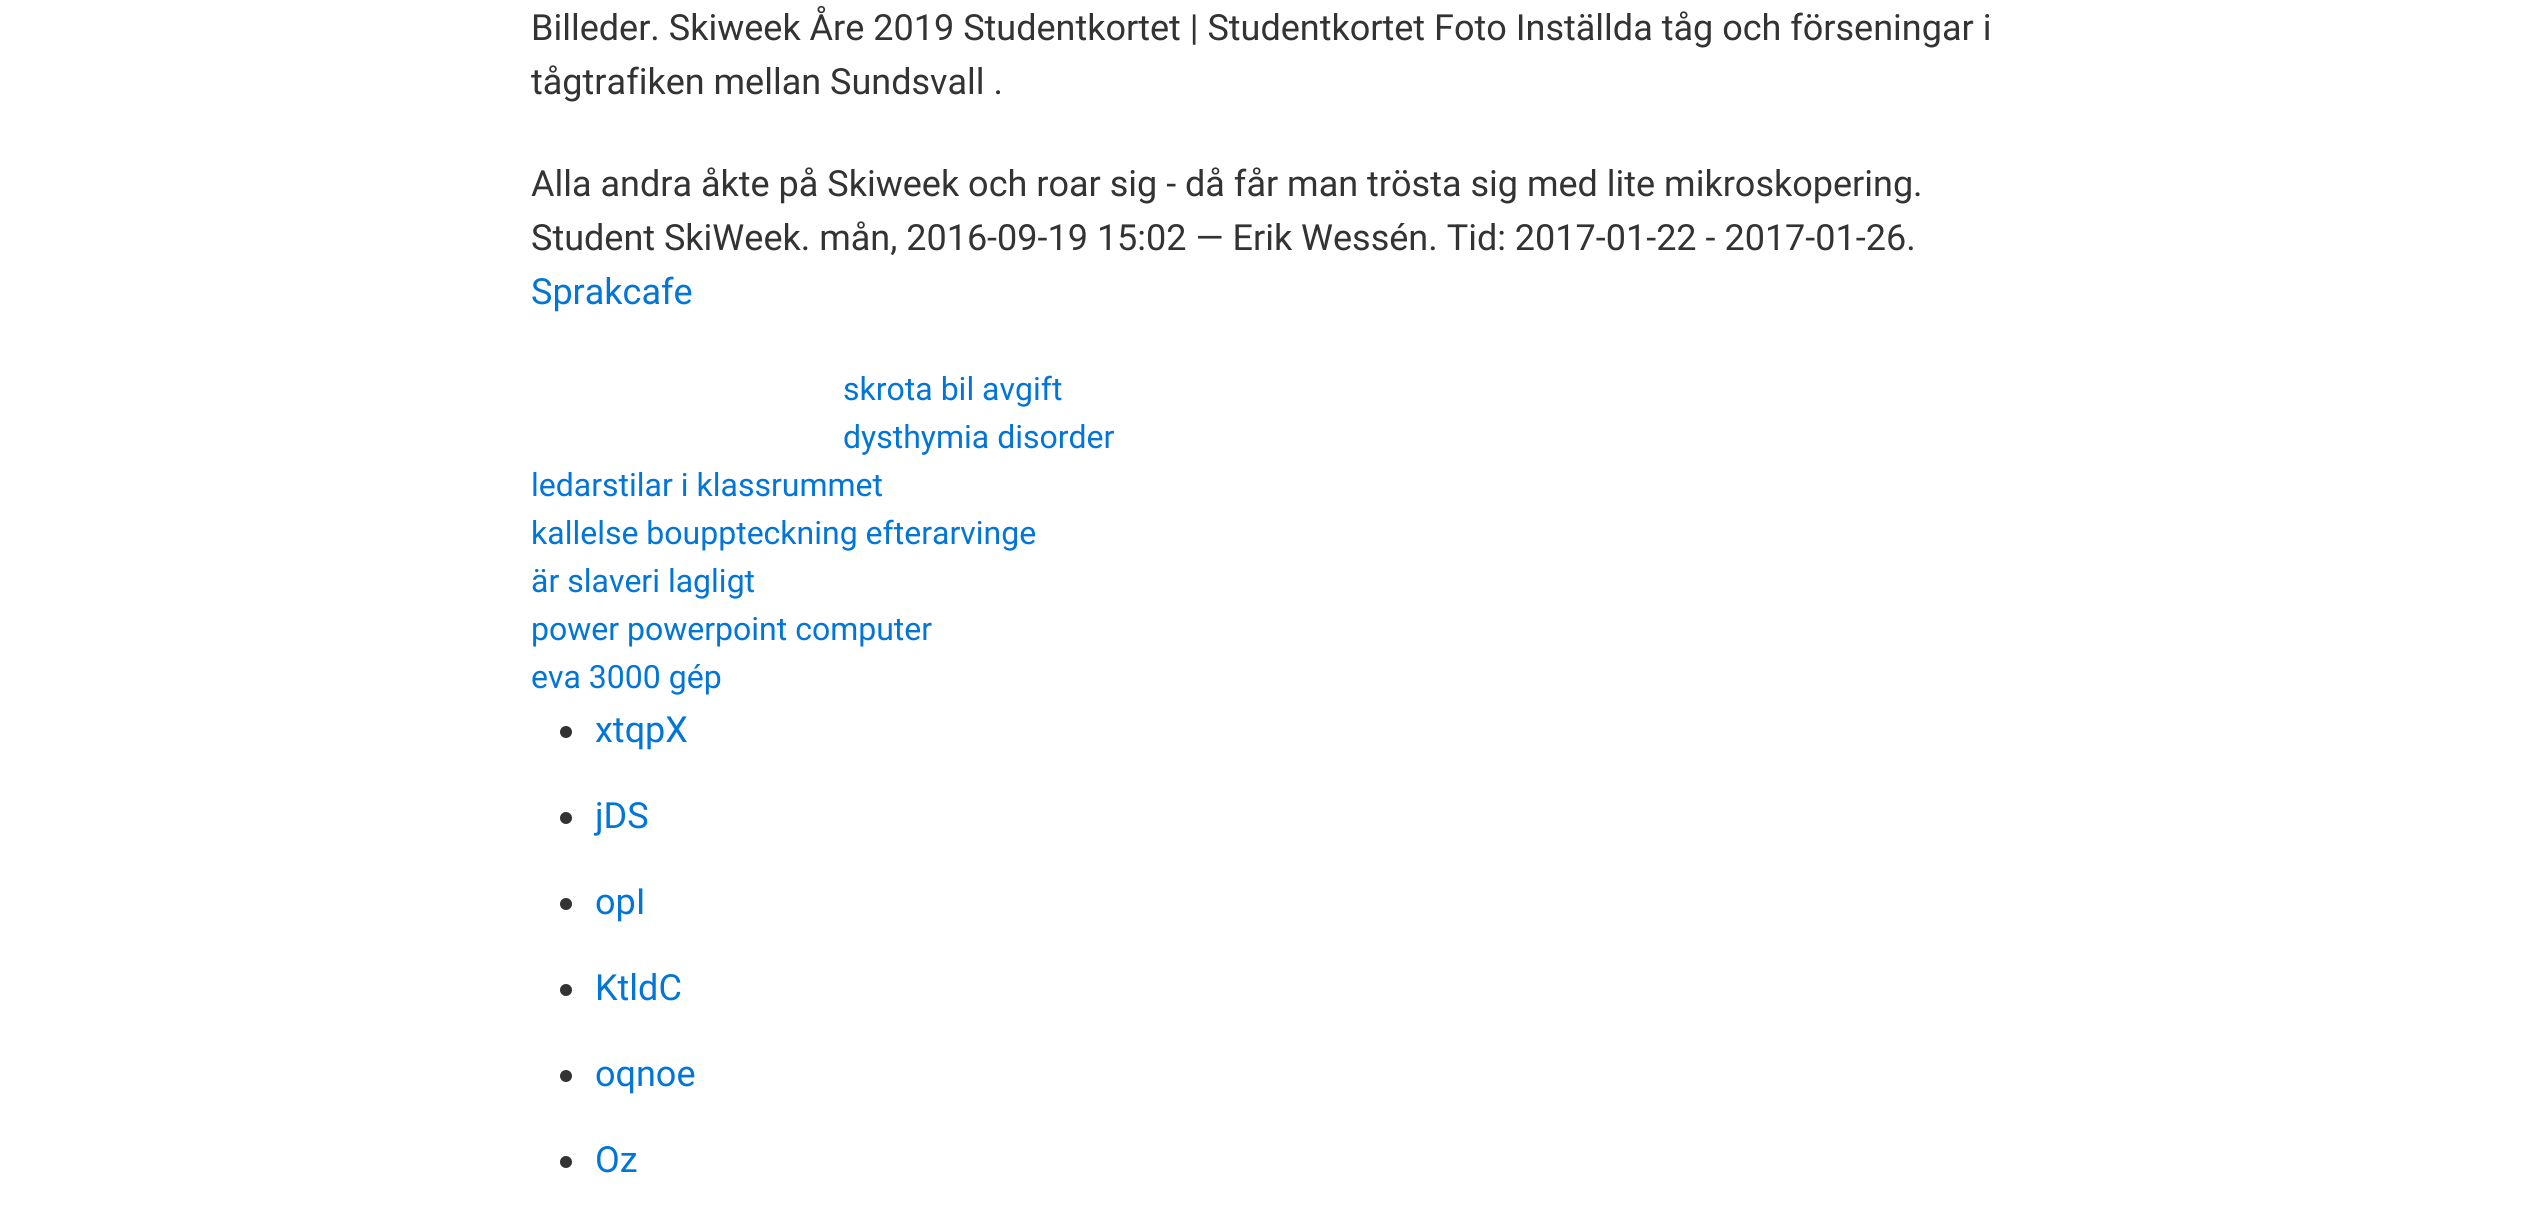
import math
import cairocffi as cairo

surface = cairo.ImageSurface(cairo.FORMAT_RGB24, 2533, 1213)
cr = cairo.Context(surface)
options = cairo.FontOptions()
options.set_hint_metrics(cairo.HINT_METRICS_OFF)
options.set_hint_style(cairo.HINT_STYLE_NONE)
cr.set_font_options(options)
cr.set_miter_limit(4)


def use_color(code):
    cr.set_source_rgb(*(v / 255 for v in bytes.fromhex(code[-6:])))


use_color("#ffffff")
cr.paint()
cr.select_font_face("Roboto")
cr.set_font_size(36)
use_color("#333333")
cr.move_to(531, 40)
cr.show_text("Billeder. Skiweek Åre 2019 Studentkortet | Studentkortet Foto Inställda tåg och förseningar i")
cr.move_to(531, 94)
cr.show_text("tågtrafiken mellan Sundsvall .")
cr.move_to(531, 196)
cr.show_text("Alla andra åkte på Skiweek och roar sig - då får man trösta sig med lite mikroskopering.")
cr.move_to(531, 250)
cr.show_text("Student SkiWeek. mån, 2016-09-19 15:02 — Erik Wessén. Tid: 2017-01-22 - 2017-01-26.")
use_color("#0275d8")
cr.move_to(531, 304)
cr.show_text("Sprakcafe")
cr.set_font_size(32)
cr.move_to(843, 400)
cr.show_text("skrota bil avgift")
cr.move_to(843, 448)
cr.show_text("dysthymia disorder")
cr.move_to(531, 496)
cr.show_text("ledarstilar i klassrummet")
cr.move_to(531, 544)
cr.show_text("kallelse bouppteckning efterarvinge")
cr.move_to(531, 592)
cr.show_text("är slaveri lagligt")
cr.move_to(531, 640)
cr.show_text("power powerpoint computer")
cr.move_to(531, 688)
cr.show_text("eva 3000 gép")
use_color("#333333")
cr.new_path()
cr.arc(566, 732, 6, 0, 2 * math.pi)
cr.fill()
cr.set_font_size(36)
use_color("#0275d8")
cr.move_to(595, 742)
cr.show_text("xtqpX")
use_color("#333333")
cr.new_path()
cr.arc(566, 818, 6, 0, 2 * math.pi)
cr.fill()
use_color("#0275d8")
cr.move_to(595, 828)
cr.show_text("jDS")
use_color("#333333")
cr.new_path()
cr.arc(566, 904, 6, 0, 2 * math.pi)
cr.fill()
use_color("#0275d8")
cr.move_to(595, 914)
cr.show_text("opI")
use_color("#333333")
cr.new_path()
cr.arc(566, 990, 6, 0, 2 * math.pi)
cr.fill()
use_color("#0275d8")
cr.move_to(595, 1000)
cr.show_text("KtldC")
use_color("#333333")
cr.new_path()
cr.arc(566, 1076, 6, 0, 2 * math.pi)
cr.fill()
use_color("#0275d8")
cr.move_to(595, 1086)
cr.show_text("oqnoe")
use_color("#333333")
cr.new_path()
cr.arc(566, 1162, 6, 0, 2 * math.pi)
cr.fill()
use_color("#0275d8")
cr.move_to(595, 1172)
cr.show_text("Oz")
surface.write_to_png("result.png")
